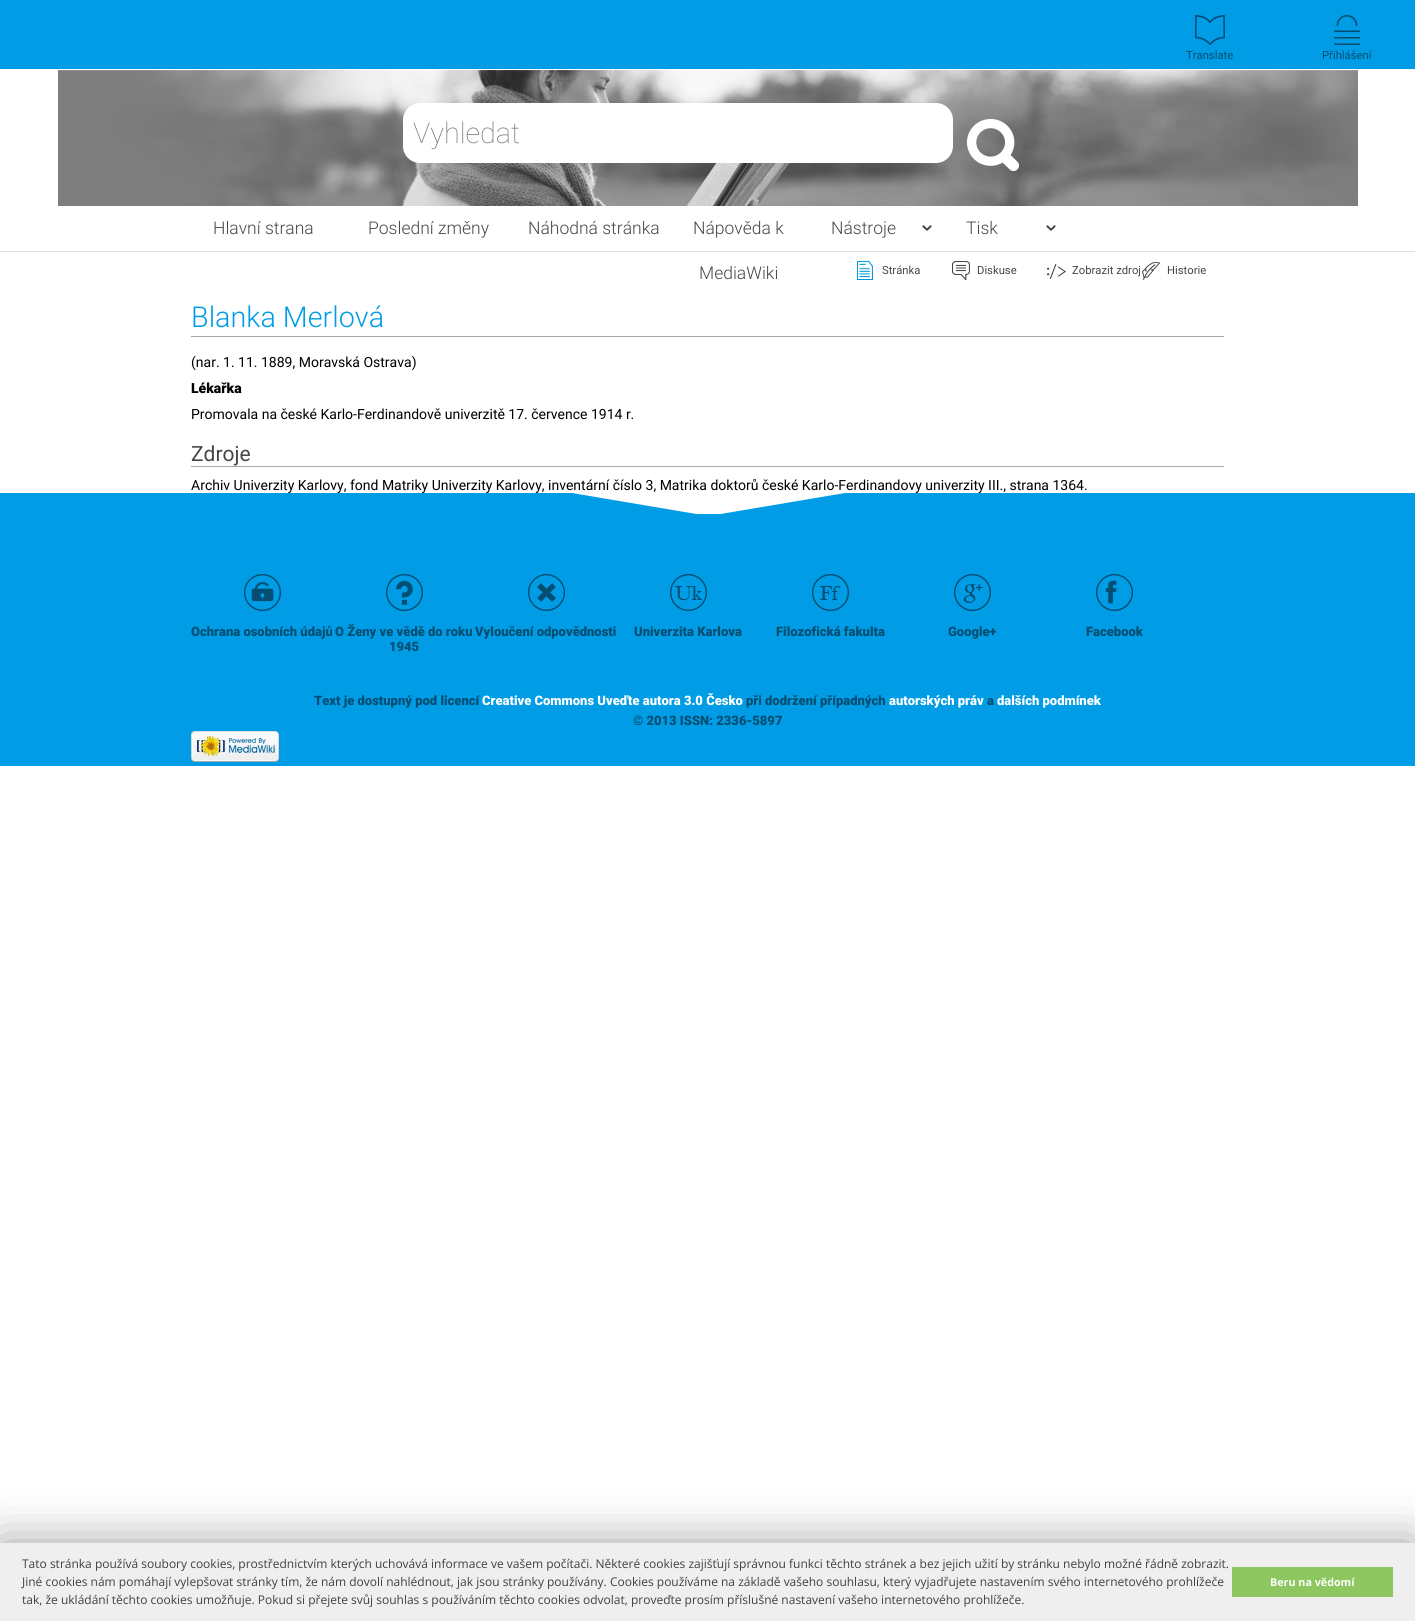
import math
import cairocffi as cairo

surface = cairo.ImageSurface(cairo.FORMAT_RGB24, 1415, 1621)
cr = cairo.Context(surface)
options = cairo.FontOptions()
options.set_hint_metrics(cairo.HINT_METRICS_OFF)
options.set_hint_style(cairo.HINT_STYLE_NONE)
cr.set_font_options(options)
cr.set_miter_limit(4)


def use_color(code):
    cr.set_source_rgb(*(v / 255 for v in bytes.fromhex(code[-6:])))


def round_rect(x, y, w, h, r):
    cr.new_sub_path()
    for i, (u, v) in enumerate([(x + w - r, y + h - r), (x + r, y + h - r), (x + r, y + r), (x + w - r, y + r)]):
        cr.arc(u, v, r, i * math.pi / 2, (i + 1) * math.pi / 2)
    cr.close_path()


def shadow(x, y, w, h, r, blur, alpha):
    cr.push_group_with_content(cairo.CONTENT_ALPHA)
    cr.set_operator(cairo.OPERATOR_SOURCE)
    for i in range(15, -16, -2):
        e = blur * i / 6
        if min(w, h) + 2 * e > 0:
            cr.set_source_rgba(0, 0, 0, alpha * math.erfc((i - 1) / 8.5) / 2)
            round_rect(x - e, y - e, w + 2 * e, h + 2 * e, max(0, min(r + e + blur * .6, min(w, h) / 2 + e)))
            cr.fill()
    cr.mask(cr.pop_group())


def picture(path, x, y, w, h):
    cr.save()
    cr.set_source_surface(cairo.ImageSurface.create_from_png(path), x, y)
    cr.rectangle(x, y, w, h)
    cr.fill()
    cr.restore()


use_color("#ffffff")
cr.paint()
use_color("#009ce6")
cr.rectangle(0, 0, 1415, 69)
cr.fill()
picture("img1.png", 1195, 15, 30, 30)
cr.select_font_face("Roboto")
cr.set_font_size(11.25)
use_color("#034e71")
cr.move_to(1186, 59)
cr.show_text("Translate")
picture("img2.png", 1334, 15, 26, 30)
cr.move_to(1322, 59)
cr.show_text("Přihlášení")
picture("img3.png", 58, 70, 1300, 136)
use_color("#ffffff")
round_rect(403, 103, 550, 60, 17)
cr.fill()
cr.select_font_face("Roboto Thin")
cr.set_font_size(28.75)
use_color("#757575")
cr.move_to(413, 143)
cr.show_text("Vyhledat")
picture("img4.png", 967, 119, 52, 52)
use_color("#dedede")
cr.rectangle(0, 251, 1415, 1)
cr.fill()
cr.select_font_face("Roboto Light")
cr.set_font_size(17.5)
use_color("#474747")
cr.move_to(213, 234)
cr.show_text("Hlavní strana")
cr.move_to(368, 234)
cr.show_text("Poslední změny")
cr.move_to(528, 234)
cr.show_text("Náhodná stránka")
cr.move_to(693, 234)
cr.show_text("Nápověda k")
cr.move_to(699, 279)
cr.show_text("MediaWiki")
picture("img5.png", 922, 225, 10, 6)
cr.move_to(831, 234)
cr.show_text("Nástroje")
picture("img5.png", 1046, 225, 10, 6)
cr.move_to(966, 234)
cr.show_text("Tisk")
picture("img6.png", 857, 261, 16, 19)
cr.select_font_face("Roboto")
cr.set_font_size(11.25)
cr.move_to(882, 274)
cr.show_text("Stránka")
picture("img7.png", 952, 261, 18, 19)
cr.move_to(977, 274)
cr.show_text("Diskuse")
picture("img8.png", 1047, 264, 19, 15)
cr.move_to(1072, 274)
cr.show_text("Zobrazit zdroj")
picture("img9.png", 1142, 262, 18, 18)
cr.move_to(1167, 274)
cr.show_text("Historie")
use_color("#a2a9b1")
cr.rectangle(191, 336, 1033, 1)
cr.fill()
cr.select_font_face("Roboto Light")
cr.set_font_size(28.75)
use_color("#009ce6")
cr.move_to(191, 327)
cr.show_text("Blanka Merlová")
cr.select_font_face("Roboto")
cr.set_font_size(14)
use_color("#000000")
cr.move_to(191, 367)
cr.show_text("(nar. 1. 11. 1889, Moravská Ostrava)")
cr.select_font_face("Roboto Black")
cr.move_to(191, 393)
cr.show_text("Lékařka")
cr.select_font_face("Roboto")
cr.move_to(191, 419)
cr.show_text("Promovala na české Karlo-Ferdinandově univerzitě 17. července 1914 r.")
use_color("#a2a9b1")
cr.rectangle(191, 466, 1033, 1)
cr.fill()
cr.set_font_size(21)
use_color("#474747")
cr.move_to(191, 461)
cr.show_text("Zdroje")
cr.set_font_size(14)
use_color("#000000")
cr.move_to(191, 490)
cr.show_text("Archiv Univerzity Karlovy, fond Matriky Univerzity Karlovy, inventární číslo 3, Matrika doktorů české Karlo-Ferdinandovy univerzity III., strana 1364.")
use_color("#009ce6")
cr.rectangle(0, 493, 1415, 273)
cr.fill()
picture("img10.png", 572, 493, 273, 21)
picture("img11.png", 244, 574, 37, 37)
cr.select_font_face("Roboto Black")
cr.set_font_size(13)
use_color("#034e71")
cr.move_to(191, 636)
cr.show_text("Ochrana osobních údajů")
picture("img12.png", 386, 574, 37, 37)
cr.move_to(335, 636)
cr.show_text("O Ženy ve vědě do roku")
cr.move_to(389, 651)
cr.show_text("1945")
picture("img13.png", 528, 574, 37, 37)
cr.move_to(475, 636)
cr.show_text("Vyloučení odpovědnosti")
picture("img14.png", 670, 574, 37, 37)
cr.move_to(634, 636)
cr.show_text("Univerzita Karlova")
picture("img15.png", 812, 574, 37, 37)
cr.move_to(776, 636)
cr.show_text("Filozofická fakulta")
picture("img16.png", 954, 574, 37, 37)
cr.move_to(948, 636)
cr.show_text("Google+")
picture("img17.png", 1096, 574, 37, 37)
cr.move_to(1086, 636)
cr.show_text("Facebook")
cr.move_to(314, 705)
cr.show_text("Text je dostupný pod licencí")
use_color("#ffffff")
cr.move_to(482, 705)
cr.show_text("Creative Commons Uveďte autora 3.0 Česko")
use_color("#034e71")
cr.move_to(746, 705)
cr.show_text("při dodržení případných")
use_color("#ffffff")
cr.move_to(889, 705)
cr.show_text("autorských práv")
use_color("#034e71")
cr.move_to(987, 705)
cr.show_text("a")
use_color("#ffffff")
cr.move_to(997, 705)
cr.show_text("dalších podmínek")
use_color("#034e71")
cr.move_to(633, 725)
cr.show_text("© 2013 ISSN: 2336-5897")
picture("img18.png", 191, 731, 88, 31)
use_color("#000000")
shadow(0, 1543, 1415, 78, 0, 25, 0.38)
use_color("#efefef")
cr.rectangle(0, 1543, 1415, 78)
cr.fill()
cr.select_font_face("Open Sans")
cr.set_font_size(12)
use_color("#404040")
cr.move_to(22, 1568)
cr.show_text("Tato stránka používá soubory cookies, prostřednictvím kterých uchovává informace ve vašem počítači. Některé cookies zajišťují správnou funkci těchto stránek a bez jejich užití by stránku nebylo možné řádně zobrazit.")
cr.move_to(22, 1586)
cr.show_text("Jiné cookies nám pomáhají vylepšovat stránky tím, že nám dovolí nahlédnout, jak jsou stránky používány. Cookies používáme na základě vašeho souhlasu, který vyjadřujete nastavením svého internetového prohlížeče")
cr.move_to(22, 1604)
cr.show_text("tak, že ukládání těchto cookies umožňuje. Pokud si přejete svůj souhlas s používáním těchto cookies odvolat, proveďte prosím příslušné nastavení vašeho internetového prohlížeče.")
use_color("#8ec760")
cr.rectangle(1232, 1567, 161, 30)
cr.fill()
cr.select_font_face("Open Sans", cairo.FONT_SLANT_NORMAL, cairo.FONT_WEIGHT_BOLD)
cr.set_font_size(10.75)
use_color("#ffffff")
cr.move_to(1270, 1586)
cr.show_text("Beru na vědomí")
surface.write_to_png("result.png")
